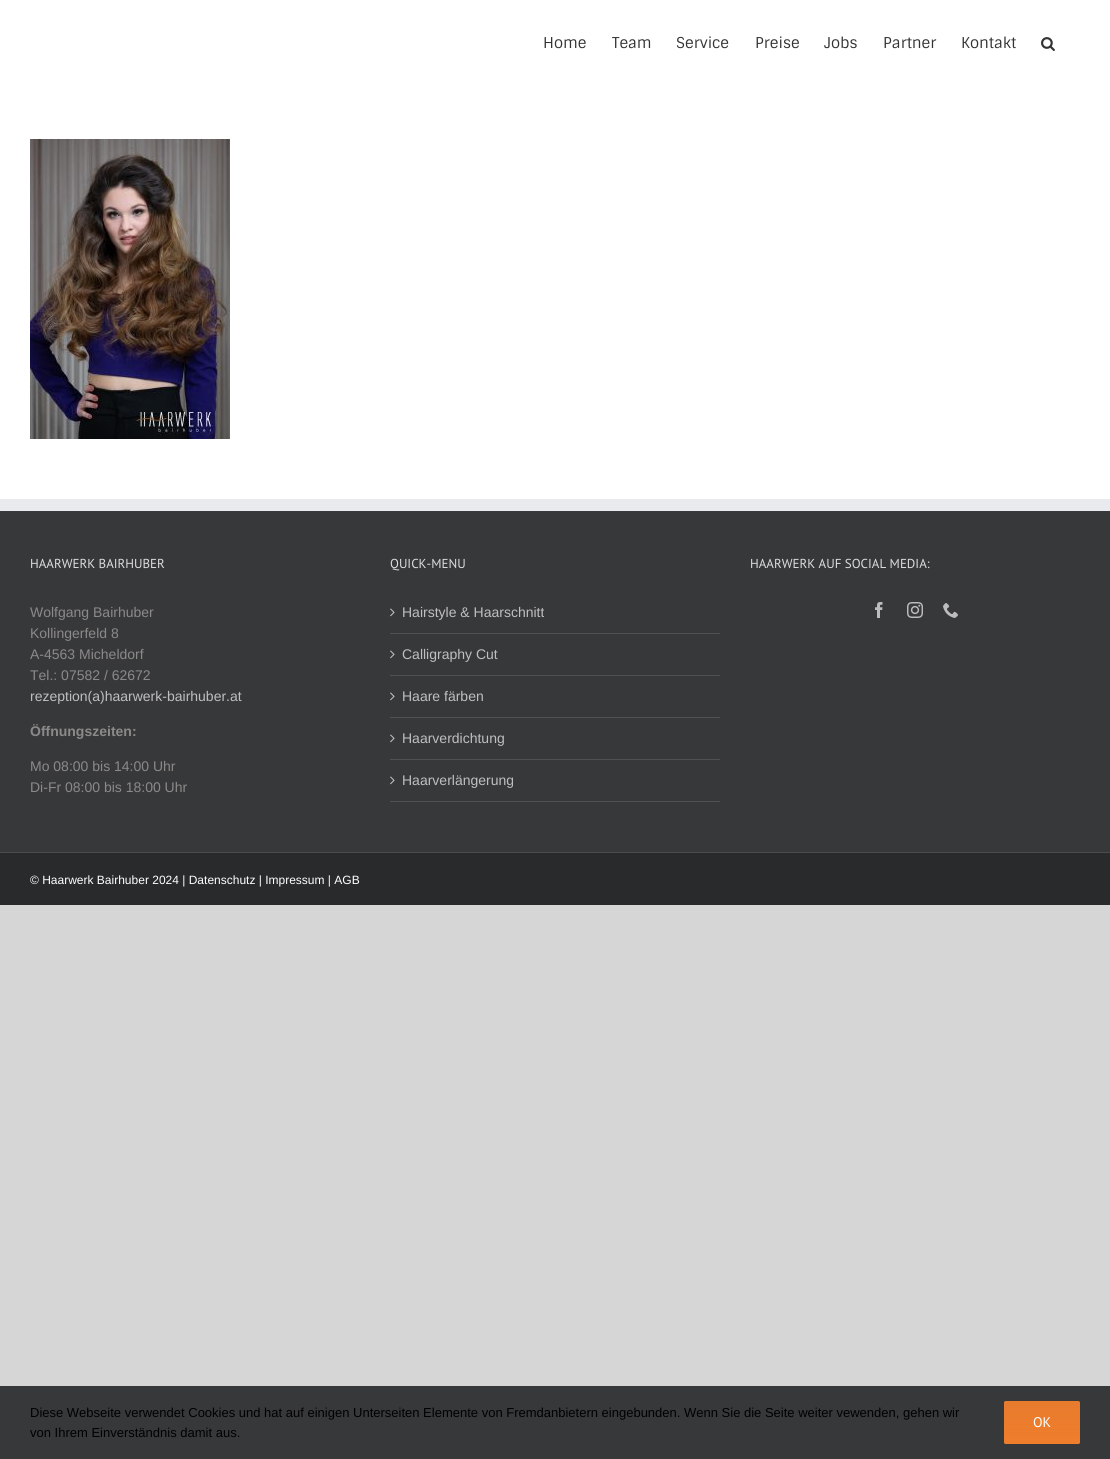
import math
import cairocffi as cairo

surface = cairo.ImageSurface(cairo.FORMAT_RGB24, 1110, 1459)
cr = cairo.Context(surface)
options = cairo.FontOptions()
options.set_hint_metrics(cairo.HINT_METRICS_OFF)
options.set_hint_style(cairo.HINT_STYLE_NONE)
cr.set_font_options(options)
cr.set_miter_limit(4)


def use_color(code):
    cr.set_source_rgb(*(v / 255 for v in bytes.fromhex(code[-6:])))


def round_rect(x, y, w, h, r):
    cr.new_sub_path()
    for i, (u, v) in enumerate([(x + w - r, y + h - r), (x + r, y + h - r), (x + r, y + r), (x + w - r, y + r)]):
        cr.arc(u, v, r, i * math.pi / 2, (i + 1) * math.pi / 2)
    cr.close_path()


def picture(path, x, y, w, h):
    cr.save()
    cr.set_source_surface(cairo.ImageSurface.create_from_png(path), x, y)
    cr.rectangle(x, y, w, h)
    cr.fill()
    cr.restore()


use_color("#d7d6d6")
cr.paint()
use_color("#ffffff")
cr.rectangle(0, 0, 1110, 499)
cr.fill()
cr.select_font_face("Sintony")
cr.set_font_size(15)
use_color("#333333")
cr.move_to(543, 48)
cr.show_text("Home")
cr.move_to(612, 48)
cr.show_text("Team")
cr.move_to(676, 48)
cr.show_text("Service")
cr.move_to(755, 48)
cr.show_text("Preise")
cr.move_to(824, 48)
cr.show_text("Jobs")
cr.move_to(883, 48)
cr.show_text("Partner")
cr.move_to(961, 48)
cr.show_text("Kontakt")
picture("img1.png", 1041, 37, 14, 14)
picture("img2.png", 30, 139, 200, 300)
use_color("#363839")
cr.rectangle(0, 511, 1110, 341)
cr.fill()
use_color("#e9eaee")
cr.rectangle(0, 499, 1110, 12)
cr.fill()
cr.select_font_face("PT Sans")
cr.set_font_size(13)
use_color("#dddddd")
cr.move_to(30, 568)
cr.show_text("HAARWERK BAIRHUBER")
cr.select_font_face("Liberation Sans")
cr.set_font_size(14)
use_color("#8c8989")
cr.move_to(30, 617)
cr.show_text("Wolfgang Bairhuber")
cr.move_to(30, 638)
cr.show_text("Kollingerfeld 8")
cr.move_to(30, 659)
cr.show_text("A-4563 Micheldorf")
cr.move_to(30, 680)
cr.show_text("Tel.: 07582 / 62672")
use_color("#bfbfbf")
cr.move_to(30, 701)
cr.show_text("rezeption(a)haarwerk-bairhuber.at")
cr.select_font_face("Liberation Sans", cairo.FONT_SLANT_NORMAL, cairo.FONT_WEIGHT_BOLD)
use_color("#8c8989")
cr.move_to(30, 736)
cr.show_text("Öffnungszeiten:")
cr.select_font_face("Liberation Sans")
cr.move_to(30, 771)
cr.show_text("Mo 08:00 bis 14:00 Uhr")
cr.move_to(30, 792)
cr.show_text("Di-Fr 08:00 bis 18:00 Uhr")
cr.select_font_face("PT Sans")
cr.set_font_size(13)
use_color("#dddddd")
cr.move_to(390, 568)
cr.show_text("QUICK-MENU")
use_color("#505152")
cr.rectangle(390, 633, 330, 1)
cr.fill()
picture("img3.png", 390, 608, 5, 9)
cr.select_font_face("Liberation Sans")
cr.set_font_size(14)
use_color("#bfbfbf")
cr.move_to(402, 617)
cr.show_text("Hairstyle & Haarschnitt")
use_color("#505152")
cr.rectangle(390, 675, 330, 1)
cr.fill()
picture("img3.png", 390, 650, 5, 9)
use_color("#bfbfbf")
cr.move_to(402, 659)
cr.show_text("Calligraphy Cut")
use_color("#505152")
cr.rectangle(390, 717, 330, 1)
cr.fill()
picture("img3.png", 390, 692, 5, 9)
use_color("#bfbfbf")
cr.move_to(402, 701)
cr.show_text("Haare färben")
use_color("#505152")
cr.rectangle(390, 759, 330, 1)
cr.fill()
picture("img3.png", 390, 734, 5, 9)
use_color("#bfbfbf")
cr.move_to(402, 743)
cr.show_text("Haarverdichtung")
use_color("#505152")
cr.rectangle(390, 801, 330, 1)
cr.fill()
picture("img3.png", 390, 776, 5, 9)
use_color("#bfbfbf")
cr.move_to(402, 785)
cr.show_text("Haarverlängerung")
cr.select_font_face("PT Sans")
cr.set_font_size(13)
use_color("#dddddd")
cr.move_to(750, 568)
cr.show_text("HAARWERK AUF SOCIAL MEDIA:")
picture("img4.png", 875, 602, 8, 16)
picture("img5.png", 907, 602, 16, 16)
picture("img6.png", 943, 603, 15, 15)
use_color("#282a2b")
cr.rectangle(0, 853, 1110, 52)
cr.fill()
use_color("#4b4c4d")
cr.rectangle(0, 852, 1110, 1)
cr.fill()
cr.select_font_face("Liberation Sans")
cr.set_font_size(12)
use_color("#ffffff")
cr.move_to(30, 884)
cr.show_text("© Haarwerk Bairhuber 2024 | Datenschutz | Impressum | AGB")
use_color("#363839")
cr.rectangle(0, 1386, 1110, 73)
cr.fill()
cr.set_font_size(13)
use_color("#000000")
cr.move_to(30, 1417)
cr.show_text("Diese Webseite verwendet Cookies und hat auf einigen Unterseiten Elemente von Fremdanbietern eingebunden. Wenn Sie die Seite weiter vewenden, gehen wir")
cr.move_to(30, 1437)
cr.show_text("von Ihrem Einverständnis damit aus.")
use_color("#ca702f")
round_rect(1004, 1401, 76, 43, 2)
cr.fill()
gradient = cairo.LinearGradient(1042, 1444, 1042, 1401)
gradient.add_color_stop_rgba(0, 0.937, 0.494, 0.176, 1)
gradient.add_color_stop_rgba(1, 0.937, 0.494, 0.176, 0.8)
cr.set_source(gradient)
round_rect(1004, 1401, 76, 43, 2)
cr.fill()
cr.select_font_face("PT Sans")
cr.set_font_size(14)
use_color("#ffffff")
cr.move_to(1033, 1427)
cr.show_text("OK")
surface.write_to_png("result.png")
